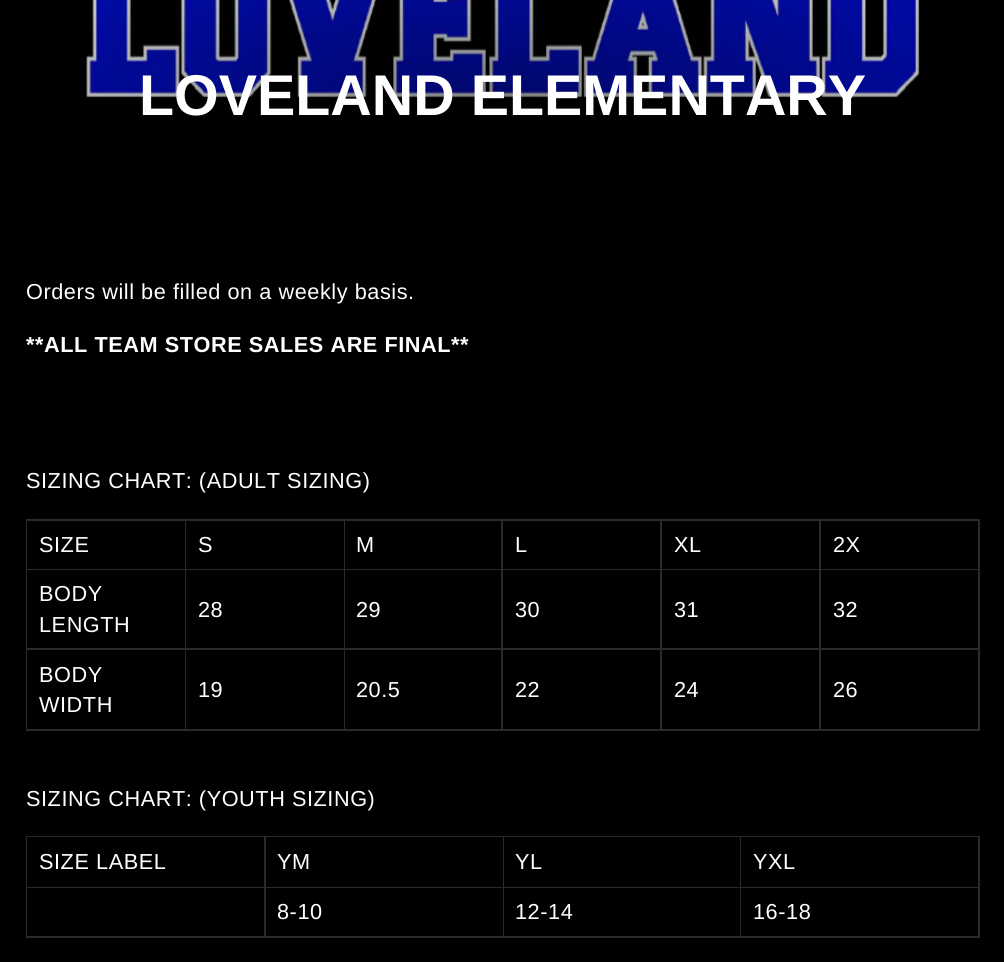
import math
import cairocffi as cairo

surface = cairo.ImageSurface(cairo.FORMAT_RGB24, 1004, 962)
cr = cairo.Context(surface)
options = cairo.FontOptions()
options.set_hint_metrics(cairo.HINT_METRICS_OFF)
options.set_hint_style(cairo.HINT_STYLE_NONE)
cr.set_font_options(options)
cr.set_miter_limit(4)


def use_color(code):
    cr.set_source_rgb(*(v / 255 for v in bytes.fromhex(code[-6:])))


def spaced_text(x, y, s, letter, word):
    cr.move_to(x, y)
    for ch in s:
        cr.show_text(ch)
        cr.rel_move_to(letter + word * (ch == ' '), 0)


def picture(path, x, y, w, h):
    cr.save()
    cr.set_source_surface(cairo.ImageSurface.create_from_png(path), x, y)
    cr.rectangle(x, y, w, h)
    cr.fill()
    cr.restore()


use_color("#000000")
cr.paint()
picture("img1.png", 86, 0, 834, 98)
gradient = cairo.RadialGradient(0, 0, 0, 0, 0, 1)
gradient.set_matrix(cairo.Matrix(1 / 938, 0, 0, 1 / 253, -1 * 503 / 938, -1 * 95 / 253))
gradient.add_color_stop_rgba(0, 0, 0, 0, 0.35)
gradient.add_color_stop_rgba(0.6, 0, 0, 0, 0)
cr.set_source(gradient)
cr.rectangle(86, 0, 833, 98)
cr.fill()
cr.select_font_face("Liberation Sans", cairo.FONT_SLANT_NORMAL, cairo.FONT_WEIGHT_BOLD)
cr.set_font_size(57.4)
use_color("#ffffff")
cr.move_to(139, 115)
cr.show_text("LOVELAND ELEMENTARY")
cr.select_font_face("Liberation Sans")
cr.set_font_size(21.7)
spaced_text(26, 299, "Orders will be filled on a weekly basis.", 0.55, 0)
cr.select_font_face("Liberation Sans", cairo.FONT_SLANT_NORMAL, cairo.FONT_WEIGHT_BOLD)
spaced_text(26, 352, "**ALL TEAM STORE SALES ARE FINAL**", 0.55, 0)
cr.select_font_face("Liberation Sans")
spaced_text(26, 488, "SIZING CHART: (ADULT SIZING)", 0.55, 0)
use_color("#2b2a27")
cr.rectangle(26, 519, 954, 212)
cr.fill()
use_color("#000000")
cr.rectangle(27, 521, 158, 48)
cr.fill()
use_color("#ffffff")
spaced_text(39, 552, "SIZE", 0.55, 0)
use_color("#000000")
cr.rectangle(186, 521, 158, 48)
cr.fill()
use_color("#ffffff")
spaced_text(198, 552, "S", 0.55, 0)
use_color("#000000")
cr.rectangle(345, 521, 156, 48)
cr.fill()
use_color("#ffffff")
spaced_text(356, 552, "M", 0.55, 0)
use_color("#000000")
cr.rectangle(503, 521, 157, 48)
cr.fill()
use_color("#ffffff")
spaced_text(515, 552, "L", 0.55, 0)
use_color("#000000")
cr.rectangle(662, 521, 157, 48)
cr.fill()
use_color("#ffffff")
spaced_text(674, 552, "XL", 0.55, 0)
use_color("#000000")
cr.rectangle(821, 521, 157, 48)
cr.fill()
use_color("#ffffff")
spaced_text(833, 552, "2X", 0.55, 0)
use_color("#000000")
cr.rectangle(27, 570, 158, 78)
cr.fill()
use_color("#ffffff")
spaced_text(39, 601, "BODY", 0.55, 0)
spaced_text(39, 632, "LENGTH", 0.55, 0)
use_color("#000000")
cr.rectangle(186, 570, 158, 78)
cr.fill()
use_color("#ffffff")
spaced_text(198, 617, "28", 0.55, 0)
use_color("#000000")
cr.rectangle(345, 570, 156, 78)
cr.fill()
use_color("#ffffff")
spaced_text(356, 617, "29", 0.55, 0)
use_color("#000000")
cr.rectangle(503, 570, 157, 78)
cr.fill()
use_color("#ffffff")
spaced_text(515, 617, "30", 0.55, 0)
use_color("#000000")
cr.rectangle(662, 570, 157, 78)
cr.fill()
use_color("#ffffff")
spaced_text(674, 617, "31", 0.55, 0)
use_color("#000000")
cr.rectangle(821, 570, 157, 78)
cr.fill()
use_color("#ffffff")
spaced_text(833, 617, "32", 0.55, 0)
use_color("#000000")
cr.rectangle(27, 650, 158, 79)
cr.fill()
use_color("#ffffff")
spaced_text(39, 682, "BODY", 0.55, 0)
spaced_text(39, 712, "WIDTH", 0.55, 0)
use_color("#000000")
cr.rectangle(186, 650, 158, 79)
cr.fill()
use_color("#ffffff")
spaced_text(198, 697, "19", 0.55, 0)
use_color("#000000")
cr.rectangle(345, 650, 156, 79)
cr.fill()
use_color("#ffffff")
spaced_text(356, 697, "20.5", 0.55, 0)
use_color("#000000")
cr.rectangle(503, 650, 157, 79)
cr.fill()
use_color("#ffffff")
spaced_text(515, 697, "22", 0.55, 0)
use_color("#000000")
cr.rectangle(662, 650, 157, 79)
cr.fill()
use_color("#ffffff")
spaced_text(674, 697, "24", 0.55, 0)
use_color("#000000")
cr.rectangle(821, 650, 157, 79)
cr.fill()
use_color("#ffffff")
spaced_text(833, 697, "26", 0.55, 0)
spaced_text(26, 806, "SIZING CHART: (YOUTH SIZING)", 0.55, 0)
use_color("#2b2a27")
cr.rectangle(26, 836, 954, 102)
cr.fill()
use_color("#000000")
cr.rectangle(27, 837, 237, 50)
cr.fill()
use_color("#ffffff")
spaced_text(39, 869, "SIZE LABEL", 0.55, 0)
use_color("#000000")
cr.rectangle(266, 837, 237, 50)
cr.fill()
use_color("#ffffff")
spaced_text(277, 869, "YM", 0.55, 0)
use_color("#000000")
cr.rectangle(504, 837, 236, 50)
cr.fill()
use_color("#ffffff")
spaced_text(515, 869, "YL", 0.55, 0)
use_color("#000000")
cr.rectangle(741, 837, 237, 50)
cr.fill()
use_color("#ffffff")
spaced_text(753, 869, "YXL", 0.55, 0)
use_color("#000000")
cr.rectangle(27, 888, 237, 48)
cr.fill()
cr.rectangle(266, 888, 237, 48)
cr.fill()
use_color("#ffffff")
spaced_text(277, 919, "8-10", 0.55, 0)
use_color("#000000")
cr.rectangle(504, 888, 236, 48)
cr.fill()
use_color("#ffffff")
spaced_text(515, 919, "12-14", 0.55, 0)
use_color("#000000")
cr.rectangle(741, 888, 237, 48)
cr.fill()
use_color("#ffffff")
spaced_text(753, 919, "16-18", 0.55, 0)
surface.write_to_png("result.png")
